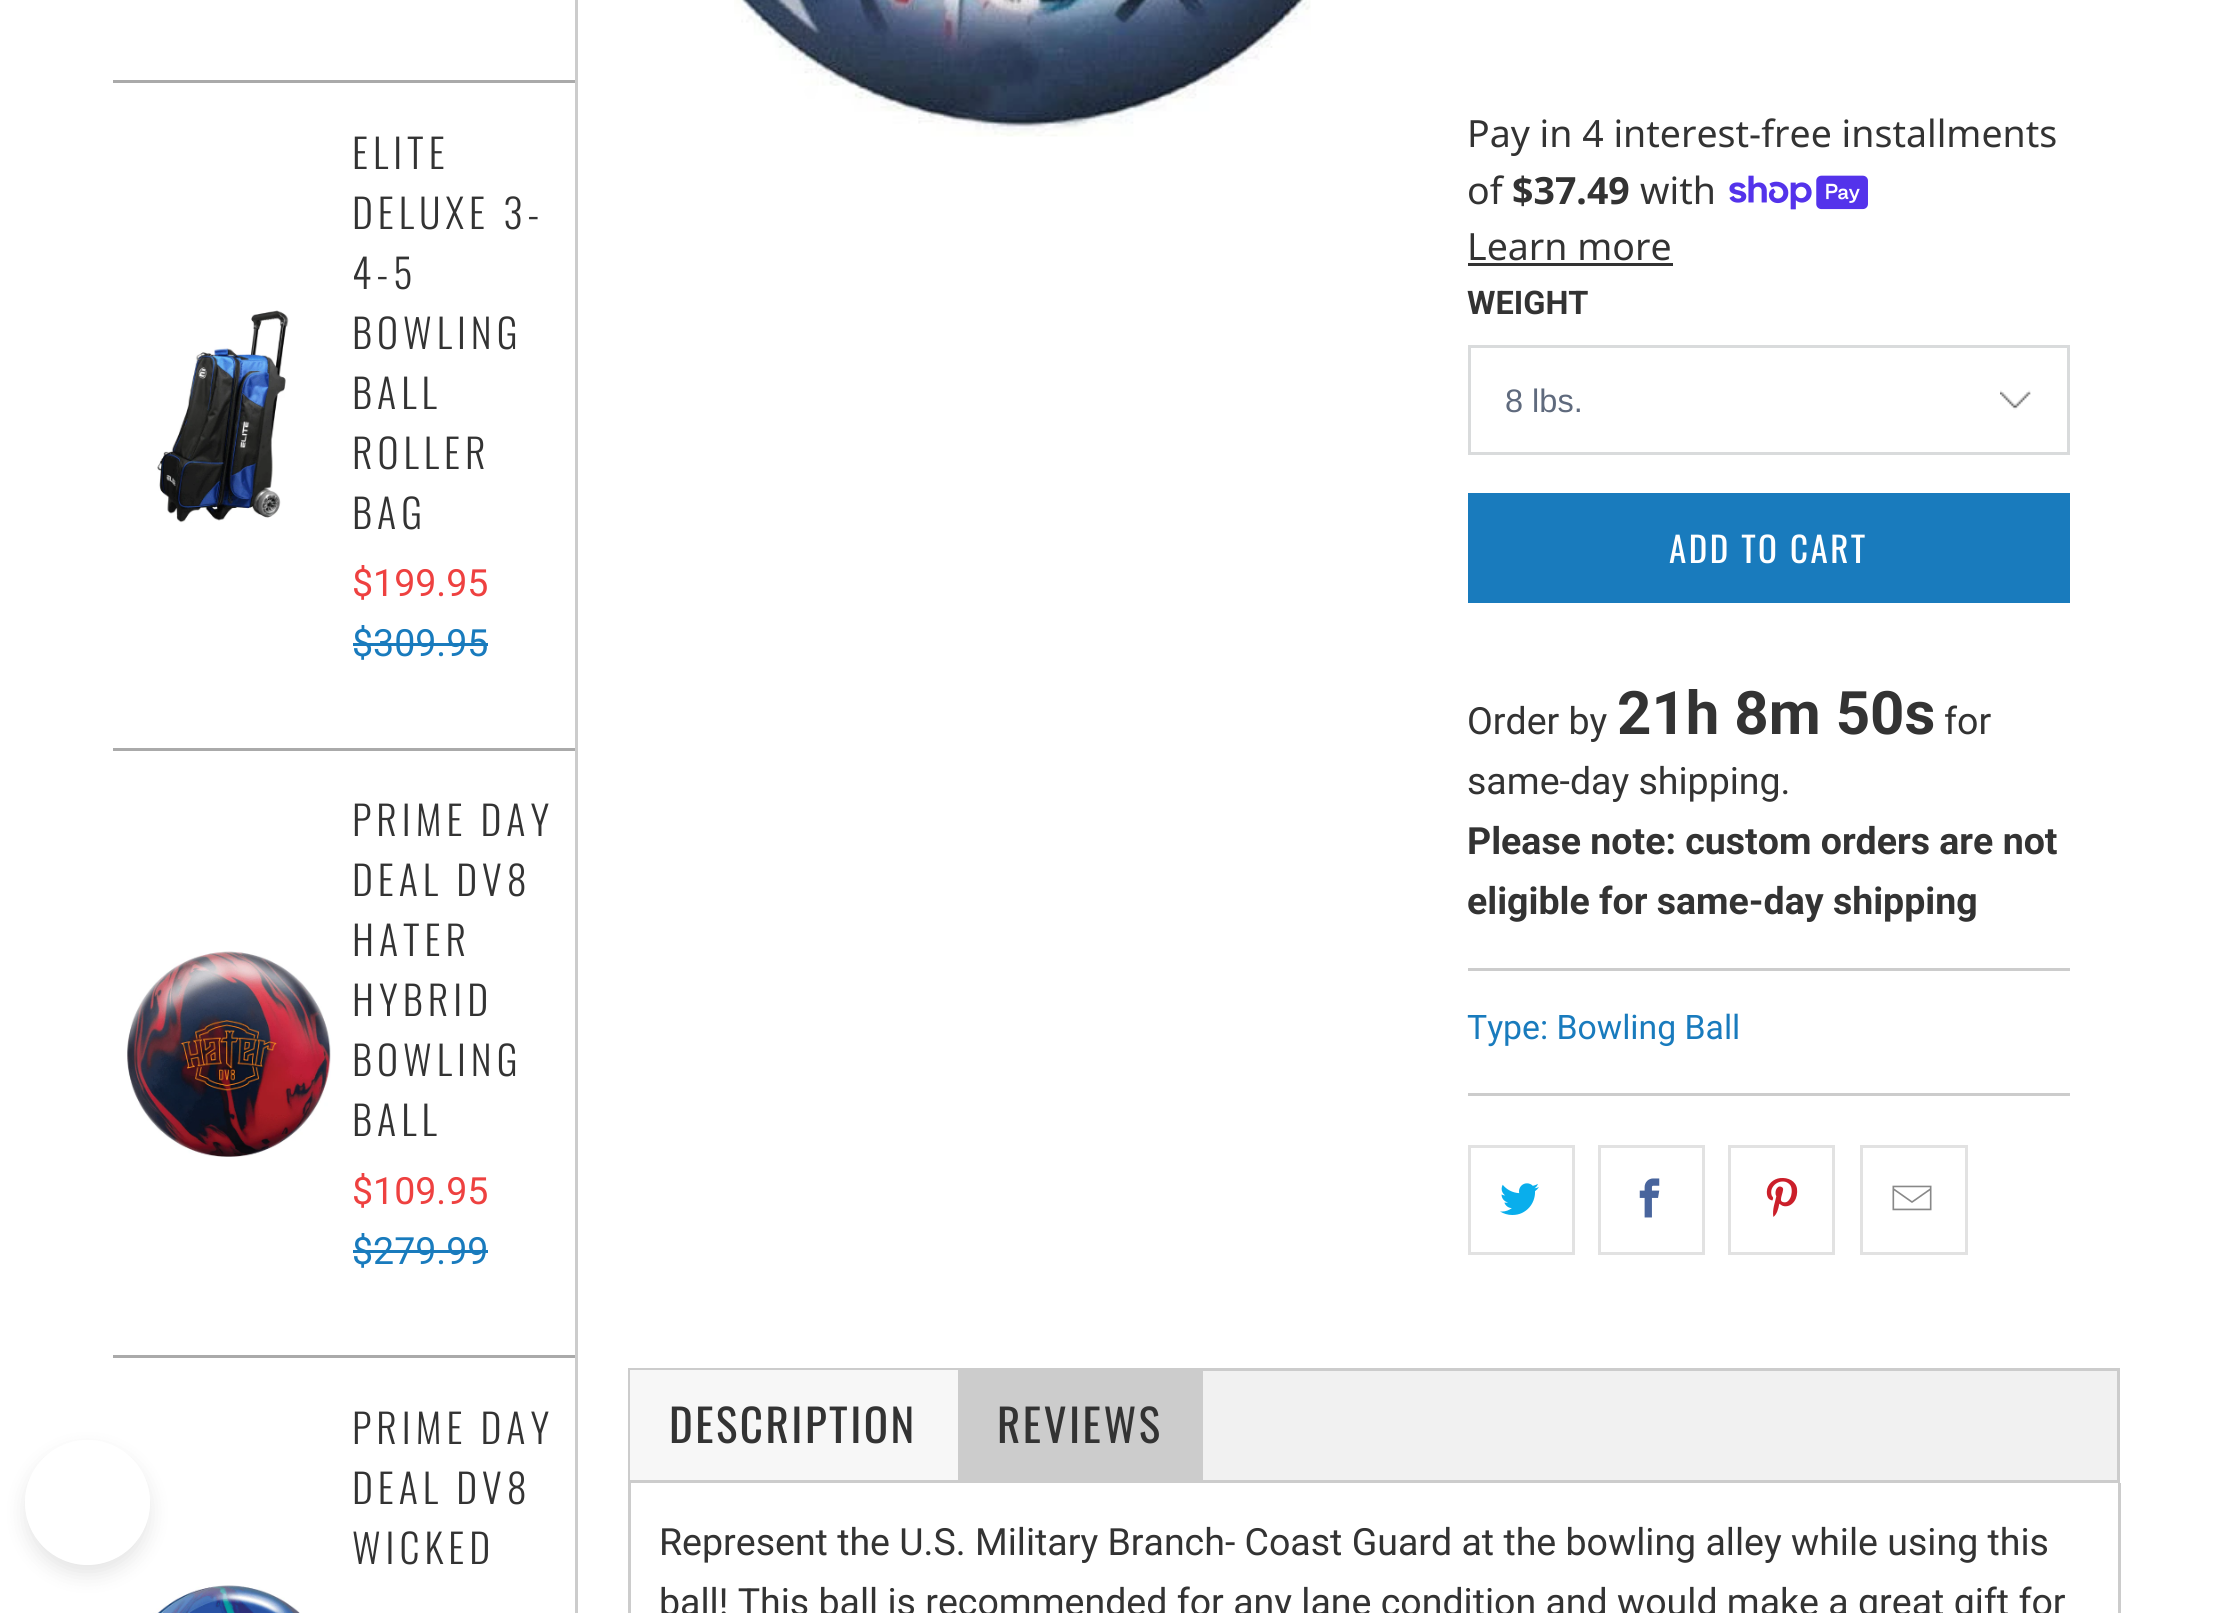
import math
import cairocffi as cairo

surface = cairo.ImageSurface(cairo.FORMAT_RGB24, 2231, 1613)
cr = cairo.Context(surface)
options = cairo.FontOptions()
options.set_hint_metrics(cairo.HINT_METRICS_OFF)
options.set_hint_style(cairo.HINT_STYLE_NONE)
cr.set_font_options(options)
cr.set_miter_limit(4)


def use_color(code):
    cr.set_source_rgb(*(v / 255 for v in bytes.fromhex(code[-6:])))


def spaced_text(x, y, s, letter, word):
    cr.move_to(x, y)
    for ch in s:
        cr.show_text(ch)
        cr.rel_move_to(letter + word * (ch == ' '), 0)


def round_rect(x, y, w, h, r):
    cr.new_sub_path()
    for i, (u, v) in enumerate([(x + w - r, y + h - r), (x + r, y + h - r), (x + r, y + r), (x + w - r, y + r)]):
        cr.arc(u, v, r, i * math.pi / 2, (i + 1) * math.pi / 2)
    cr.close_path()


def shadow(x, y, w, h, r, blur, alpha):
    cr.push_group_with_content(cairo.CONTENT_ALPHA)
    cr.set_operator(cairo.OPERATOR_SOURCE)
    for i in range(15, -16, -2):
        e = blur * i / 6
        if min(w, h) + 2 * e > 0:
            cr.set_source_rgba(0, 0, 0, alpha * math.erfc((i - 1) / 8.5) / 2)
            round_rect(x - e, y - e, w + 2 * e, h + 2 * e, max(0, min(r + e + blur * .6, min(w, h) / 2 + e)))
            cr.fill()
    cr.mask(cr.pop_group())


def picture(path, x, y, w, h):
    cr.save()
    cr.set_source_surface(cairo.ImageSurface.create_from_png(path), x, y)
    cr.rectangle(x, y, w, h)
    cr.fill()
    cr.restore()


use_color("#ffffff")
cr.paint()
picture("img3.png", 153, 1585, 147, 28)
cr.save()
cr.set_fill_rule(cairo.FILL_RULE_EVEN_ODD)
cr.new_path()
cr.move_to(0, 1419)
cr.line_to(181, 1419)
cr.line_to(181, 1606)
cr.line_to(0, 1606)
cr.close_path()
cr.move_to(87.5, 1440)
cr.curve_to(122, 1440, 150, 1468, 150, 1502.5)
cr.curve_to(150, 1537, 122, 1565, 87.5, 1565)
cr.curve_to(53, 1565, 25, 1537, 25, 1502.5)
cr.curve_to(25, 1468, 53, 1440, 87.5, 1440)
cr.close_path()
cr.clip()
use_color("#000000")
shadow(25, 1450, 125, 125, 62.5, 10, 0.1)
cr.restore()
use_color("#cccccc")
cr.rectangle(575, 0, 3, 1613)
cr.fill()
use_color("#aaaaaa")
cr.rectangle(113, 80, 462, 3)
cr.fill()
picture("img1.png", 157, 310, 132, 213)
cr.select_font_face("Oswald Light")
cr.set_font_size(40)
use_color("#333333")
spaced_text(352, 169, "ELITE", 5, 0)
spaced_text(352, 229, "DELUXE 3-", 5, 0)
spaced_text(352, 289, "4-5", 5, 0)
spaced_text(352, 349, "BOWLING", 5, 0)
spaced_text(352, 409, "BALL", 5, 0)
spaced_text(352, 469, "ROLLER", 5, 0)
spaced_text(352, 529, "BAG", 5, 0)
cr.select_font_face("Roboto")
cr.set_font_size(37.5)
use_color("#ee4140")
cr.move_to(352, 596)
cr.show_text("$199.95")
use_color("#197bbd")
cr.move_to(352, 656)
cr.show_text("$309.95")
cr.rectangle(353, 643, 135, 3)
cr.fill()
use_color("#aaaaaa")
cr.rectangle(113, 748, 462, 3)
cr.fill()
picture("img2.png", 127, 951, 204, 206)
cr.select_font_face("Oswald Light")
cr.set_font_size(40)
use_color("#333333")
spaced_text(352, 836, "PRIME DAY", 5, 0)
spaced_text(352, 896, "DEAL DV8", 5, 0)
spaced_text(352, 956, "HATER", 5, 0)
spaced_text(352, 1016, "HYBRID", 5, 0)
spaced_text(352, 1076, "BOWLING", 5, 0)
spaced_text(352, 1136, "BALL", 5, 0)
cr.select_font_face("Roboto")
cr.set_font_size(37.5)
use_color("#ee4140")
cr.move_to(352, 1204)
cr.show_text("$109.95")
use_color("#197bbd")
cr.move_to(352, 1264)
cr.show_text("$279.99")
cr.rectangle(353, 1250, 135, 3)
cr.fill()
use_color("#aaaaaa")
cr.rectangle(113, 1355, 462, 3)
cr.fill()
cr.select_font_face("Oswald Light")
cr.set_font_size(40)
use_color("#333333")
spaced_text(352, 1444, "PRIME DAY", 5, 0)
spaced_text(352, 1504, "DEAL DV8", 5, 0)
spaced_text(352, 1564, "WICKED", 5, 0)
picture("img4.png", 734, 0, 577, 137)
cr.select_font_face("Noto Sans")
cr.set_font_size(37.5)
cr.move_to(1467, 147)
cr.show_text("Pay in 4 interest-free installments")
cr.move_to(1467, 204)
cr.show_text("of")
cr.select_font_face("Noto Sans", cairo.FONT_SLANT_NORMAL, cairo.FONT_WEIGHT_BOLD)
cr.move_to(1512, 204)
cr.show_text("$37.49")
cr.select_font_face("Noto Sans")
cr.move_to(1640, 204)
cr.show_text("with")
picture("img5.png", 1729, 175, 139, 35)
cr.move_to(1467, 260)
cr.show_text("Learn more")
cr.rectangle(1468, 263, 205, 3)
cr.fill()
cr.select_font_face("Roboto", cairo.FONT_SLANT_NORMAL, cairo.FONT_WEIGHT_BOLD)
cr.set_font_size(32.5)
cr.move_to(1467, 314)
cr.show_text("WEIGHT")
picture("img6.png", 2000, 390, 31, 20)
cr.rectangle(1469.5, 346.5, 599, 107)
use_color("#d9dbdc")
cr.set_line_width(3)
cr.stroke()
cr.select_font_face("Liberation Sans")
use_color("#5f6a7d")
cr.move_to(1505, 412)
cr.show_text("8 lbs.")
use_color("#197bbd")
cr.rectangle(1468, 493, 602, 110)
cr.fill()
cr.select_font_face("Oswald")
cr.set_font_size(35)
use_color("#ffffff")
spaced_text(1669, 563, "ADD TO CART", 2.5, 0)
cr.select_font_face("Roboto")
cr.set_font_size(37.5)
use_color("#333333")
cr.move_to(1467, 734)
cr.show_text("Order by")
cr.select_font_face("Roboto", cairo.FONT_SLANT_NORMAL, cairo.FONT_WEIGHT_BOLD)
cr.set_font_size(60)
cr.move_to(1617, 734)
cr.show_text("21h 8m 50s")
cr.select_font_face("Roboto")
cr.set_font_size(37.5)
cr.move_to(1944, 734)
cr.show_text("for")
cr.move_to(1467, 794)
cr.show_text("same-day shipping.")
cr.select_font_face("Roboto", cairo.FONT_SLANT_NORMAL, cairo.FONT_WEIGHT_BOLD)
cr.move_to(1467, 854)
cr.show_text("Please note: custom orders are not")
cr.move_to(1467, 914)
cr.show_text("eligible for same-day shipping")
use_color("#cccccc")
cr.rectangle(1468, 968, 602, 3)
cr.fill()
cr.select_font_face("Roboto")
cr.set_font_size(33.75)
use_color("#197bbd")
cr.move_to(1467, 1039)
cr.show_text("Type: Bowling Ball")
use_color("#cccccc")
cr.rectangle(1468, 1093, 602, 3)
cr.fill()
cr.rectangle(1469.5, 1146.5, 104, 107)
use_color("#e2e2e2")
cr.stroke()
picture("img7.png", 1500, 1183, 39, 32)
cr.rectangle(1599.5, 1146.5, 104, 107)
cr.stroke()
picture("img8.png", 1639, 1178, 21, 40)
cr.rectangle(1729.5, 1146.5, 104, 107)
cr.stroke()
picture("img9.png", 1766, 1178, 32, 39)
cr.rectangle(1861.5, 1146.5, 105, 107)
cr.stroke()
picture("img10.png", 1892, 1185, 40, 26)
use_color("#f1f1f1")
cr.rectangle(1203, 1371, 914, 109)
cr.fill()
cr.rectangle(629.5, 1369.5, 1489, 112)
use_color("#cccccc")
cr.stroke()
use_color("#f7f7f7")
cr.rectangle(630, 1370, 328, 110)
cr.fill()
cr.select_font_face("Oswald")
cr.set_font_size(45)
use_color("#333333")
spaced_text(669, 1443, "DESCRIPTION", 2.5, 0)
use_color("#cccccc")
cr.rectangle(958, 1371, 245, 109)
cr.fill()
use_color("#333333")
spaced_text(997, 1443, "REVIEWS", 2.5, 0)
use_color("#cccccc")
cr.rectangle(2118, 1483, 3, 130)
cr.fill()
cr.rectangle(628, 1483, 3, 130)
cr.fill()
cr.select_font_face("Roboto")
cr.set_font_size(37.5)
use_color("#333333")
cr.move_to(659, 1555)
cr.show_text("Represent the U.S. Military Branch- Coast Guard at the bowling alley while using this")
cr.move_to(659, 1615)
cr.show_text("ball! This ball is recommended for any lane condition and would make a great gift for")
surface.write_to_png("result.png")
